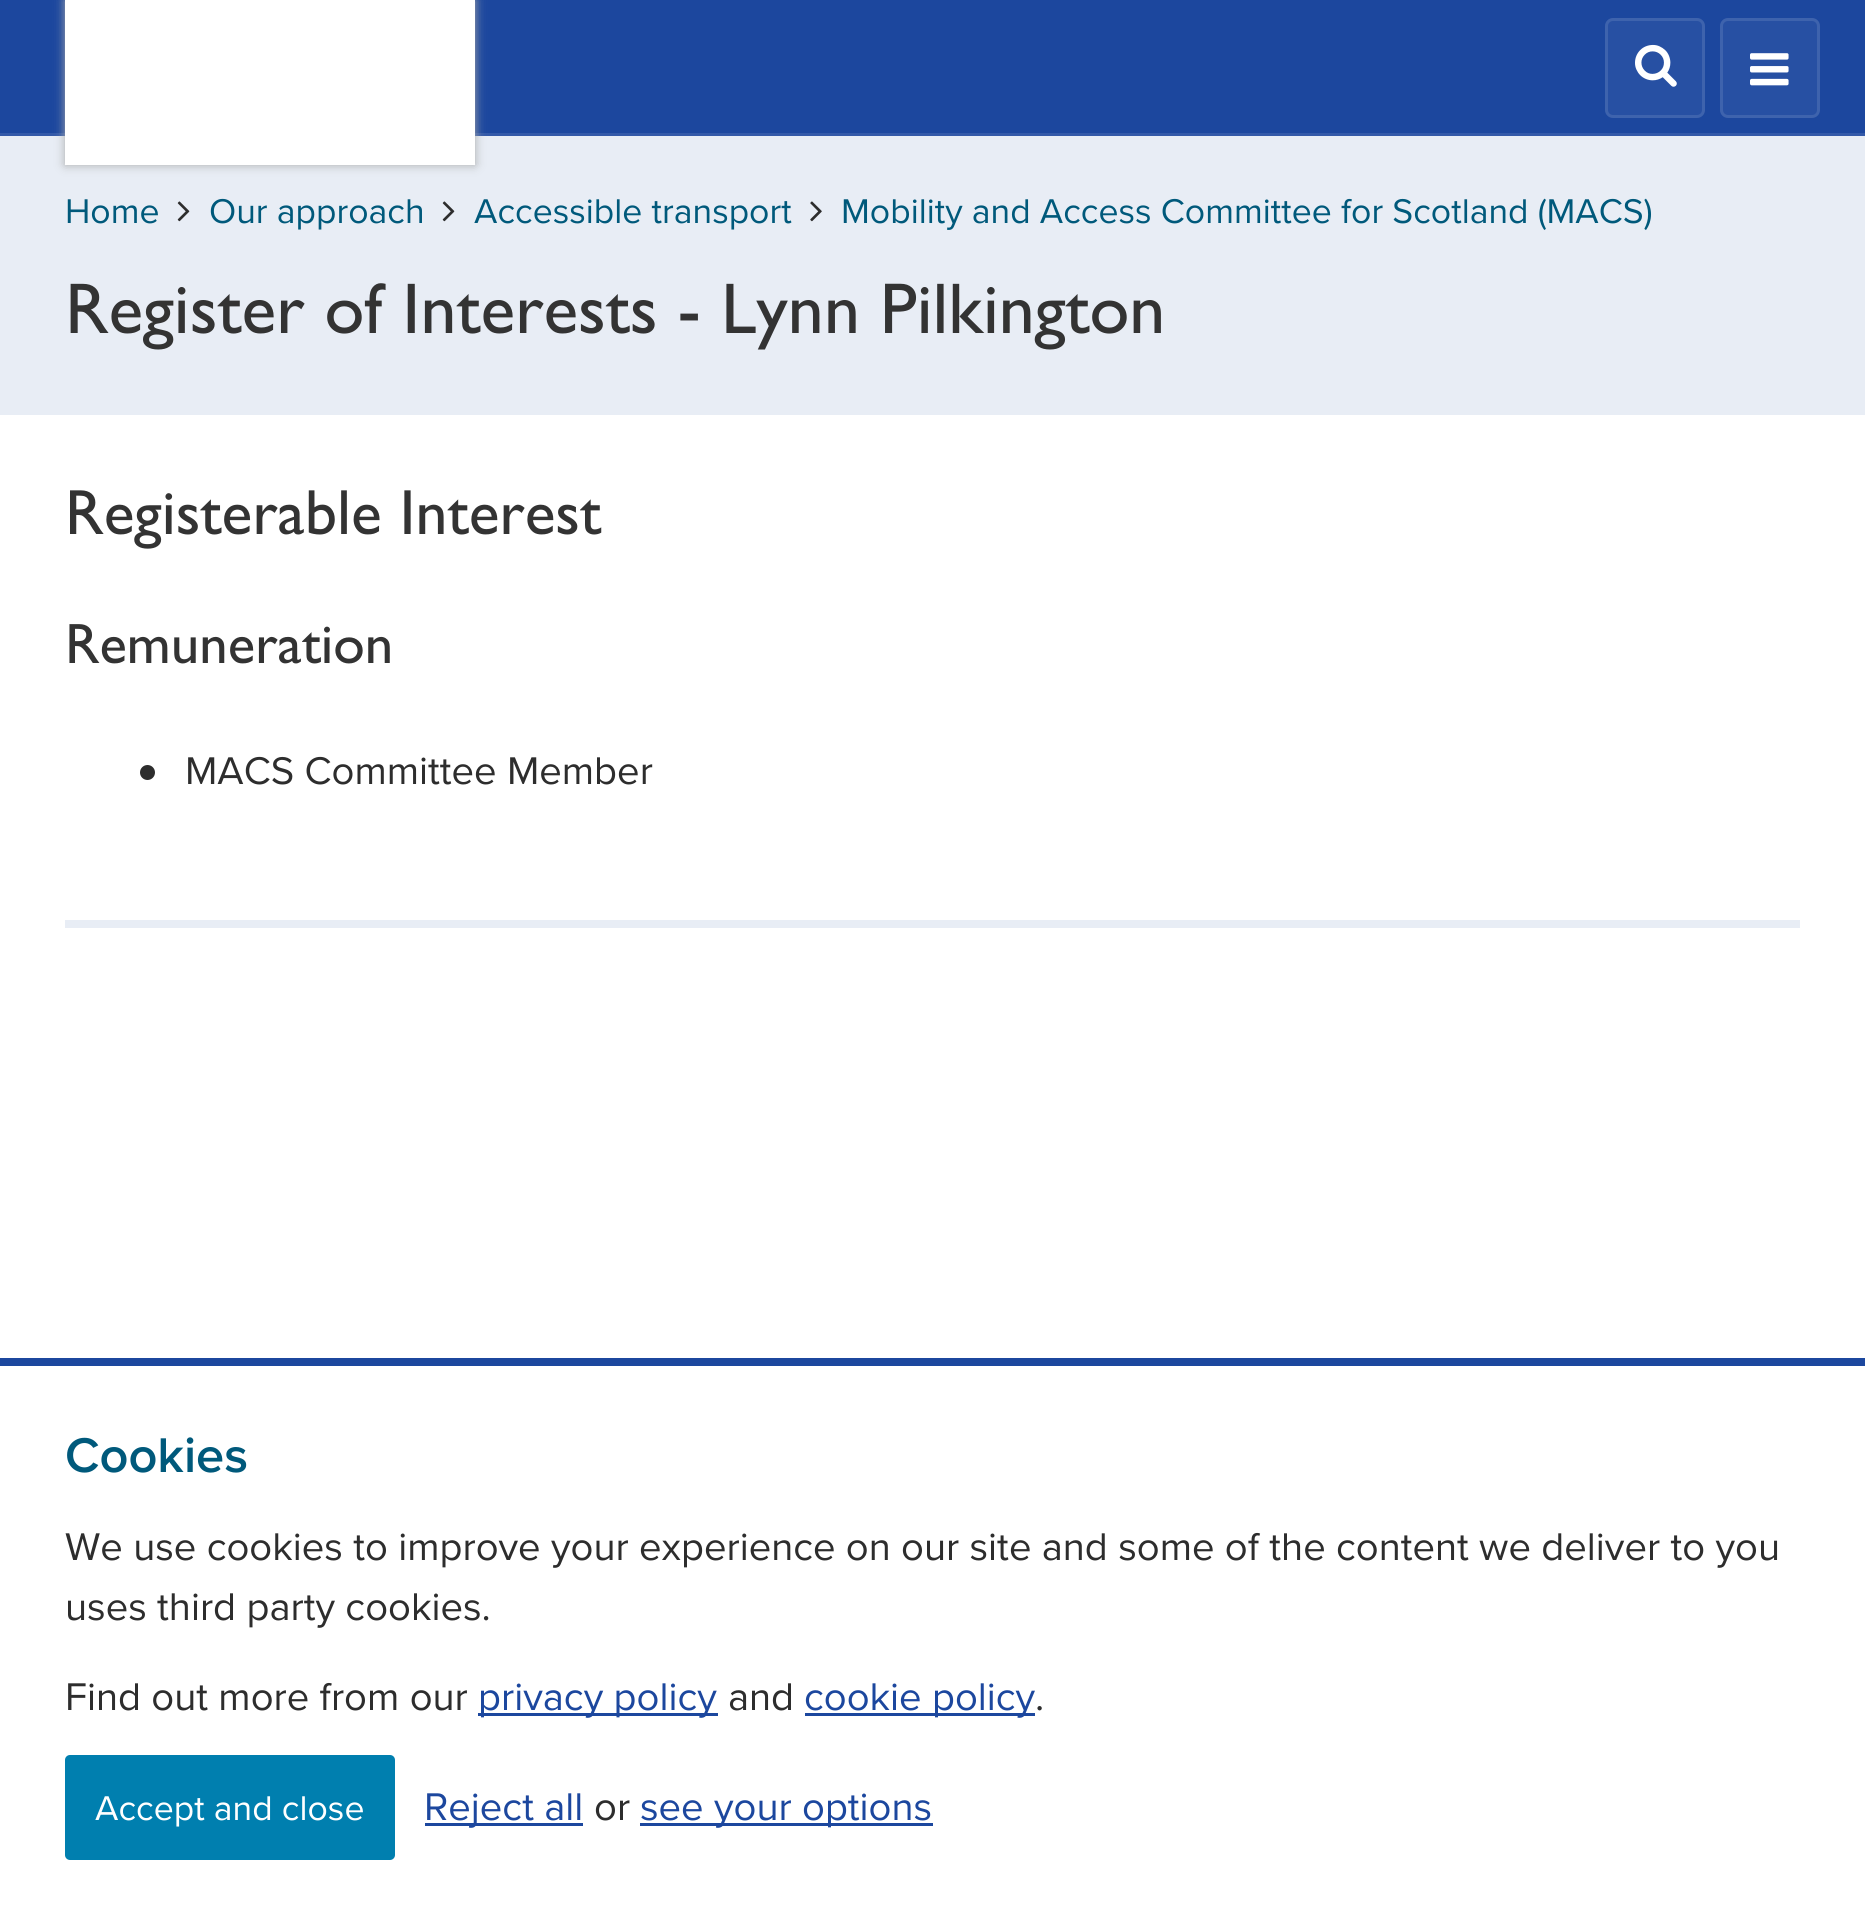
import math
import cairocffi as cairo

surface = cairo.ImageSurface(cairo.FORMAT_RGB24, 1865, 1919)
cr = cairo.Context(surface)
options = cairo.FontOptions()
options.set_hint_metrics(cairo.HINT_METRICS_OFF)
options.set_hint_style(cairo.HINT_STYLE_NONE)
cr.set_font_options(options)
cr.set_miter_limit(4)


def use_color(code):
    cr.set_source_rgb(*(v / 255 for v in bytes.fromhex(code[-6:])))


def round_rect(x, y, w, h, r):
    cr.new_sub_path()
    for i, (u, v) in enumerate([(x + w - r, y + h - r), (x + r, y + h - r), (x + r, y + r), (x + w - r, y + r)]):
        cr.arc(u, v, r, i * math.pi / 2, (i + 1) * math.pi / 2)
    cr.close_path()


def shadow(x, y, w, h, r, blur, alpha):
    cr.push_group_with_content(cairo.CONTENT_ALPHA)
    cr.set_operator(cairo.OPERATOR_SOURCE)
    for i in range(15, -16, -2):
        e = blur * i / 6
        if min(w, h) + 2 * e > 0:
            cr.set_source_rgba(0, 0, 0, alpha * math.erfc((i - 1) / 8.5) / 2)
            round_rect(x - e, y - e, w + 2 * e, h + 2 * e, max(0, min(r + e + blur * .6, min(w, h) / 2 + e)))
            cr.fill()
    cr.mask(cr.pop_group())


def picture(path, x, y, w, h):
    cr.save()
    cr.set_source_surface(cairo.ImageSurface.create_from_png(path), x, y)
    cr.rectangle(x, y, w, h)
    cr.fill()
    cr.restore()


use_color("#ffffff")
cr.paint()
use_color("#1c479e")
cr.rectangle(0, 0, 1865, 133)
cr.fill()
use_color("#3359a8")
cr.rectangle(0, 133, 1865, 3)
cr.fill()
use_color("#e8edf5")
cr.rectangle(0, 136, 1865, 279)
cr.fill()
use_color("#aaaaaa")
shadow(65, 0, 410, 165, 0, 5, 1)
use_color("#ffffff")
cr.rectangle(65, 0, 410, 165)
cr.fill()
use_color("#2750a3")
round_rect(1606.5, 19.5, 97, 97, 6.5)
cr.fill_preserve()
use_color("#3e63ad")
cr.set_line_width(3)
cr.stroke()
picture("img1.png", 1635, 44, 42, 43)
use_color("#2750a3")
round_rect(1721.5, 19.5, 97, 97, 6.5)
cr.fill_preserve()
use_color("#3e63ad")
cr.stroke()
picture("img2.png", 1750, 53, 39, 33)
cr.select_font_face("Proxima Nova")
cr.set_font_size(35.6)
use_color("#00597b")
cr.move_to(65, 223)
cr.show_text("Home")
picture("img3.png", 177, 201, 13, 21)
cr.move_to(209, 223)
cr.show_text("Our approach")
picture("img3.png", 442, 201, 13, 21)
cr.move_to(474, 223)
cr.show_text("Accessible transport")
picture("img4.png", 810, 201, 12, 21)
cr.move_to(841, 223)
cr.show_text("Mobility and Access Committee for Scotland (MACS)")
cr.select_font_face("Gill Sans Medium")
cr.set_font_size(72.1)
use_color("#333333")
cr.move_to(65, 333)
cr.show_text("Register of Interests - Lynn Pilkington")
cr.set_font_size(64)
cr.move_to(65, 534)
cr.show_text("Registerable Interest")
cr.set_font_size(57)
cr.move_to(65, 663)
cr.show_text("Remuneration")
use_color("#2d2d2d")
cr.new_path()
cr.arc(147.5, 772.5, 7.5, 0, 2 * math.pi)
cr.fill()
cr.select_font_face("Proxima Nova")
cr.set_font_size(40)
cr.move_to(185, 784)
cr.show_text("MACS Committee Member")
use_color("#e8edf5")
cr.rectangle(65, 920, 1735, 8)
cr.fill()
use_color("#1c479e")
cr.rectangle(0, 1358, 1865, 8)
cr.fill()
cr.select_font_face("Proxima Nova SemiBold")
cr.set_font_size(50.5)
use_color("#00597b")
cr.move_to(65, 1472)
cr.show_text("Cookies")
cr.select_font_face("Proxima Nova")
cr.set_font_size(40)
use_color("#2d2d2d")
cr.move_to(65, 1560)
cr.show_text("We use cookies to improve your experience on our site and some of the content we deliver to you")
cr.move_to(65, 1620)
cr.show_text("uses third party cookies.")
cr.move_to(65, 1710)
cr.show_text("Find out more from our")
use_color("#1c479e")
cr.rectangle(478, 1713, 240, 3)
cr.fill()
cr.move_to(478, 1710)
cr.show_text("privacy policy")
use_color("#2d2d2d")
cr.move_to(728, 1710)
cr.show_text("and")
use_color("#1c479e")
cr.rectangle(805, 1713, 230, 3)
cr.fill()
cr.move_to(804, 1710)
cr.show_text("cookie policy")
use_color("#2d2d2d")
cr.move_to(1035, 1710)
cr.show_text(".")
use_color("#007faf")
round_rect(65, 1755, 330, 105, 5)
cr.fill()
cr.set_font_size(35.6)
use_color("#ffffff")
cr.move_to(95, 1820)
cr.show_text("Accept and close")
use_color("#1c479e")
cr.rectangle(425, 1823, 158, 3)
cr.fill()
cr.set_font_size(40)
cr.move_to(424, 1820)
cr.show_text("Reject all")
use_color("#2d2d2d")
cr.move_to(594, 1820)
cr.show_text("or")
use_color("#1c479e")
cr.rectangle(640, 1823, 293, 3)
cr.fill()
cr.move_to(640, 1820)
cr.show_text("see your options")
surface.write_to_png("result.png")
